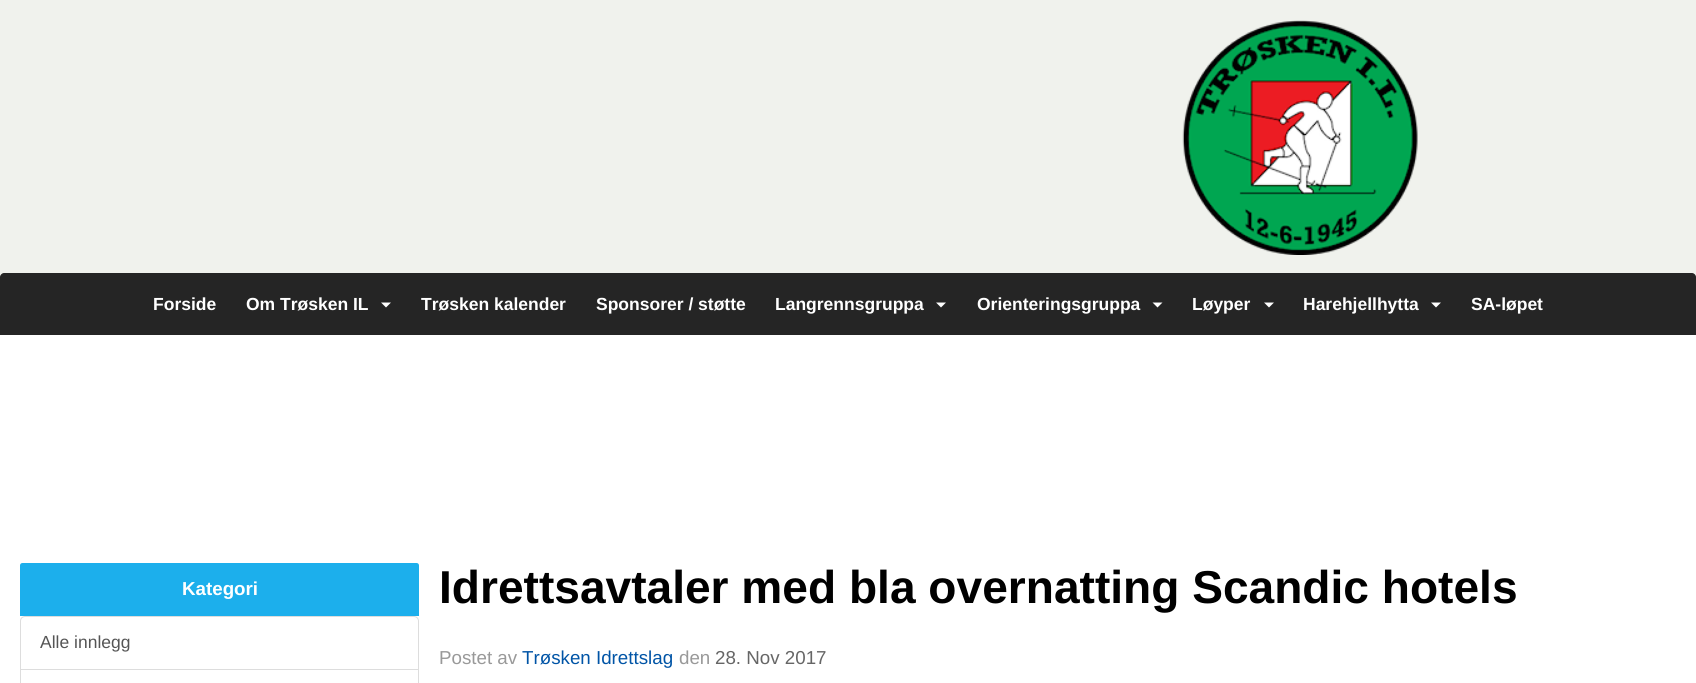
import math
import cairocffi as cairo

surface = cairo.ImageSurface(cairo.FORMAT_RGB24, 1696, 683)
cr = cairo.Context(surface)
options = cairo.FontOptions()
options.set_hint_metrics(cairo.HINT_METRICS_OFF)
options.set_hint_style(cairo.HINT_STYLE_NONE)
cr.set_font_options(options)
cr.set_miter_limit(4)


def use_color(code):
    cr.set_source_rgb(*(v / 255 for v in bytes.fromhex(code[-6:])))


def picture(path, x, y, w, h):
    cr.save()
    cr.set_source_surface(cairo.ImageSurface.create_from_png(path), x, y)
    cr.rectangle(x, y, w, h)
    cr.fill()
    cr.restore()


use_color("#f0f2ed")
cr.paint()
picture("img1.png", 1182, 20, 236, 235)
use_color("#252525")
cr.new_path()
cr.move_to(4, 273)
cr.line_to(1692, 273)
cr.curve_to(1694, 273, 1696, 275, 1696, 277)
cr.line_to(1696, 335)
cr.line_to(0, 335)
cr.line_to(0, 277)
cr.curve_to(0, 275, 2, 273, 4, 273)
cr.close_path()
cr.fill()
cr.select_font_face("Liberation Sans", cairo.FONT_SLANT_NORMAL, cairo.FONT_WEIGHT_BOLD)
cr.set_font_size(17.5)
use_color("#ffffff")
cr.move_to(153, 310)
cr.show_text("Forside")
cr.move_to(246, 310)
cr.show_text("Om Trøsken IL")
cr.new_path()
cr.move_to(381, 302.5)
cr.line_to(391, 302.5)
cr.line_to(386, 307.5)
cr.close_path()
cr.fill()
cr.move_to(421, 310)
cr.show_text("Trøsken kalender")
cr.move_to(596, 310)
cr.show_text("Sponsorer / støtte")
cr.move_to(775, 310)
cr.show_text("Langrennsgruppa")
cr.new_path()
cr.move_to(936, 302.5)
cr.line_to(946, 302.5)
cr.line_to(941, 307.5)
cr.close_path()
cr.fill()
cr.move_to(977, 310)
cr.show_text("Orienteringsgruppa")
cr.new_path()
cr.move_to(1152.5, 302.5)
cr.line_to(1162.5, 302.5)
cr.line_to(1157.5, 307.5)
cr.close_path()
cr.fill()
cr.move_to(1192, 310)
cr.show_text("Løyper")
cr.new_path()
cr.move_to(1264, 302.5)
cr.line_to(1274, 302.5)
cr.line_to(1269, 307.5)
cr.close_path()
cr.fill()
cr.move_to(1303, 310)
cr.show_text("Harehjellhytta")
cr.new_path()
cr.move_to(1431, 302.5)
cr.line_to(1441, 302.5)
cr.line_to(1436, 307.5)
cr.close_path()
cr.fill()
cr.move_to(1471, 310)
cr.show_text("SA-løpet")
cr.rectangle(0, 335, 1696, 348)
cr.fill()
use_color("#1cafec")
cr.new_path()
cr.move_to(22.5, 563)
cr.line_to(416.5, 563)
cr.curve_to(418, 563, 419, 564, 419, 565.5)
cr.line_to(419, 616)
cr.line_to(20, 616)
cr.line_to(20, 565.5)
cr.curve_to(20, 564, 21, 563, 22.5, 563)
cr.close_path()
cr.fill()
cr.set_font_size(18.75)
use_color("#ffffff")
cr.move_to(182, 595)
cr.show_text("Kategori")
cr.new_path()
cr.move_to(25, 616.5)
cr.line_to(414, 616.5)
cr.curve_to(416.5, 616.5, 418.5, 618.5, 418.5, 621)
cr.line_to(418.5, 669.5)
cr.line_to(20.5, 669.5)
cr.line_to(20.5, 621)
cr.curve_to(20.5, 618.5, 22.5, 616.5, 25, 616.5)
cr.close_path()
use_color("#dddddd")
cr.set_line_width(1)
cr.stroke()
cr.select_font_face("Liberation Sans")
cr.set_font_size(17.5)
use_color("#555555")
cr.move_to(40, 648)
cr.show_text("Alle innlegg")
cr.rectangle(20.5, 669.5, 398, 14)
use_color("#dddddd")
cr.stroke()
cr.select_font_face("Liberation Sans", cairo.FONT_SLANT_NORMAL, cairo.FONT_WEIGHT_BOLD)
cr.set_font_size(46.1)
use_color("#000000")
cr.move_to(439, 603)
cr.show_text("Idrettsavtaler med bla overnatting Scandic hotels")
cr.select_font_face("Liberation Sans")
cr.set_font_size(18.75)
use_color("#999999")
cr.move_to(439, 664)
cr.show_text("Postet av")
use_color("#0054a6")
cr.move_to(522, 664)
cr.show_text("Trøsken Idrettslag")
use_color("#999999")
cr.move_to(679, 664)
cr.show_text("den")
use_color("#666666")
cr.move_to(715, 664)
cr.show_text("28. Nov 2017")
surface.write_to_png("result.png")
